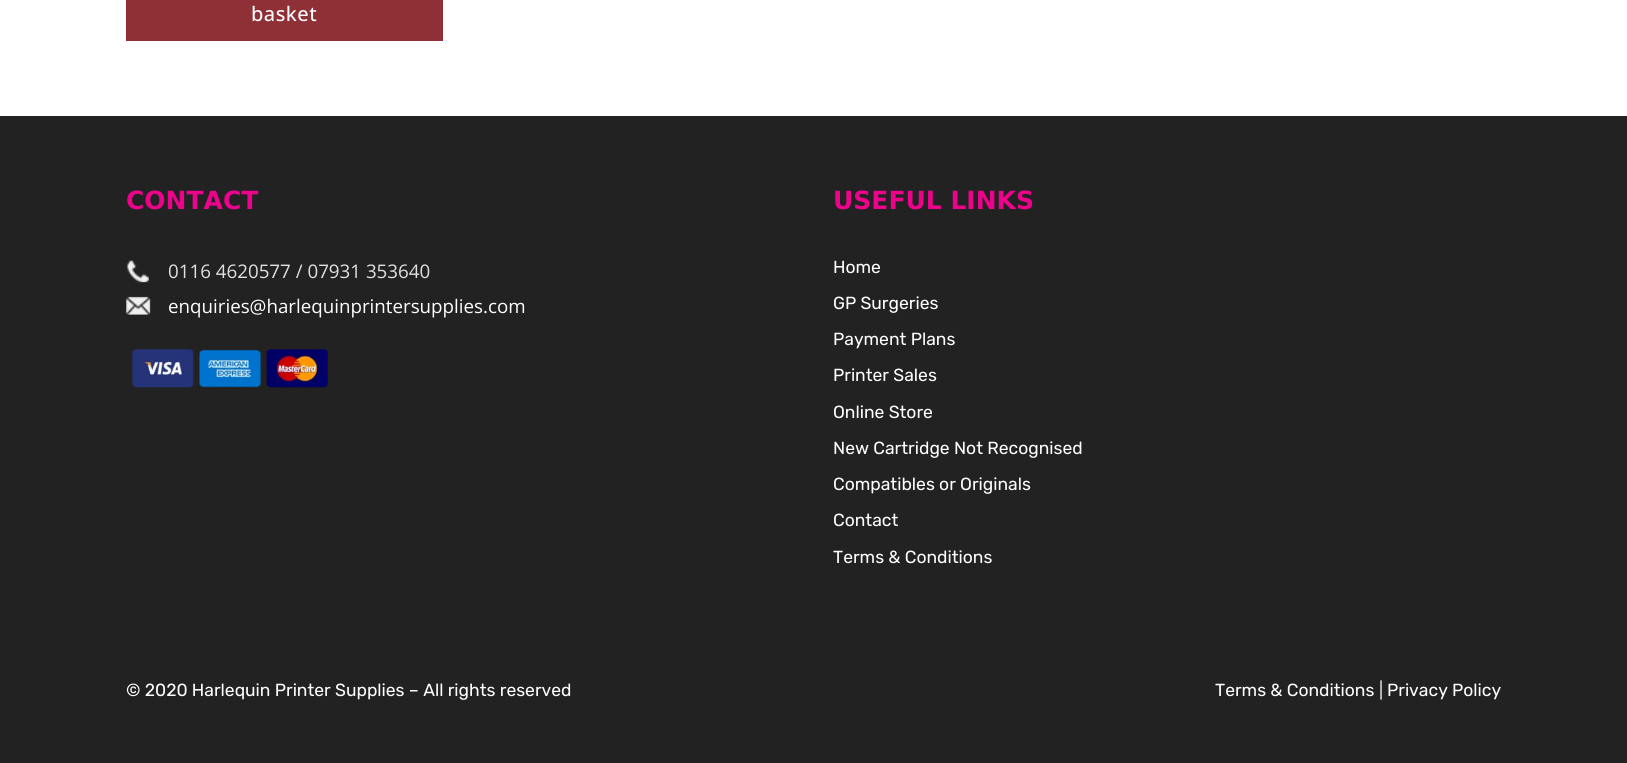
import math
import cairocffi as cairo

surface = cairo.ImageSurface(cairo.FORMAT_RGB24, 1627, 763)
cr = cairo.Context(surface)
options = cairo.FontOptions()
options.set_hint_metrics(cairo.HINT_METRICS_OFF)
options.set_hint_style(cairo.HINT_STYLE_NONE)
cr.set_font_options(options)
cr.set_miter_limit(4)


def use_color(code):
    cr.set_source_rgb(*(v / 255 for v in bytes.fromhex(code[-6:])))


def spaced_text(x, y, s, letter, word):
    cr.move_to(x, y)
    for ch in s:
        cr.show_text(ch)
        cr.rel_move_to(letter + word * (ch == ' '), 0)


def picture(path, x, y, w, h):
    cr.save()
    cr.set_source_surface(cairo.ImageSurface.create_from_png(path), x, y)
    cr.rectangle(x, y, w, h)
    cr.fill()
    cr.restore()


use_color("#ffffff")
cr.paint()
use_color("#8f3036")
cr.rectangle(126, 0, 317, 41)
cr.fill()
cr.select_font_face("Open Sans Medium")
cr.set_font_size(20)
use_color("#ffffff")
spaced_text(251, 21, "basket", 0.5, 0)
use_color("#222222")
cr.rectangle(0, 116, 1627, 647)
cr.fill()
cr.select_font_face("DejaVu Sans", cairo.FONT_SLANT_NORMAL, cairo.FONT_WEIGHT_BOLD)
cr.set_font_size(25)
use_color("#ed028c")
cr.move_to(126, 209)
cr.show_text("CONTACT")
picture("img1.png", 127, 260, 22, 23)
cr.select_font_face("Open Sans")
cr.set_font_size(18.75)
use_color("#e1e1e1")
cr.move_to(168, 278)
cr.show_text("0116 4620577 / 07931 353640")
picture("img2.png", 126, 296, 25, 19)
use_color("#ffffff")
cr.move_to(168, 313)
cr.show_text("enquiries@harlequinprintersupplies.com")
picture("img3.png", 132, 349, 196, 39)
cr.select_font_face("DejaVu Sans", cairo.FONT_SLANT_NORMAL, cairo.FONT_WEIGHT_BOLD)
cr.set_font_size(25)
use_color("#ed028c")
cr.move_to(833, 209)
cr.show_text("USEFUL LINKS")
cr.select_font_face("Rubik")
cr.set_font_size(17.5)
use_color("#ffffff")
cr.move_to(833, 273)
cr.show_text("Home")
cr.move_to(833, 309)
cr.show_text("GP Surgeries")
cr.move_to(833, 345)
cr.show_text("Payment Plans")
cr.move_to(833, 381)
cr.show_text("Printer Sales")
cr.move_to(833, 418)
cr.show_text("Online Store")
cr.move_to(833, 454)
cr.show_text("New Cartridge Not Recognised")
cr.move_to(833, 490)
cr.show_text("Compatibles or Originals")
cr.move_to(833, 526)
cr.show_text("Contact")
cr.move_to(833, 563)
cr.show_text("Terms & Conditions")
cr.move_to(126, 696)
cr.show_text("© 2020 Harlequin Printer Supplies – All rights reserved")
cr.move_to(1215, 696)
cr.show_text("Terms & Conditions")
use_color("#e1e1e1")
cr.move_to(1379, 696)
cr.show_text("|")
use_color("#ffffff")
cr.move_to(1387, 696)
cr.show_text("Privacy Policy")
surface.write_to_png("result.png")
